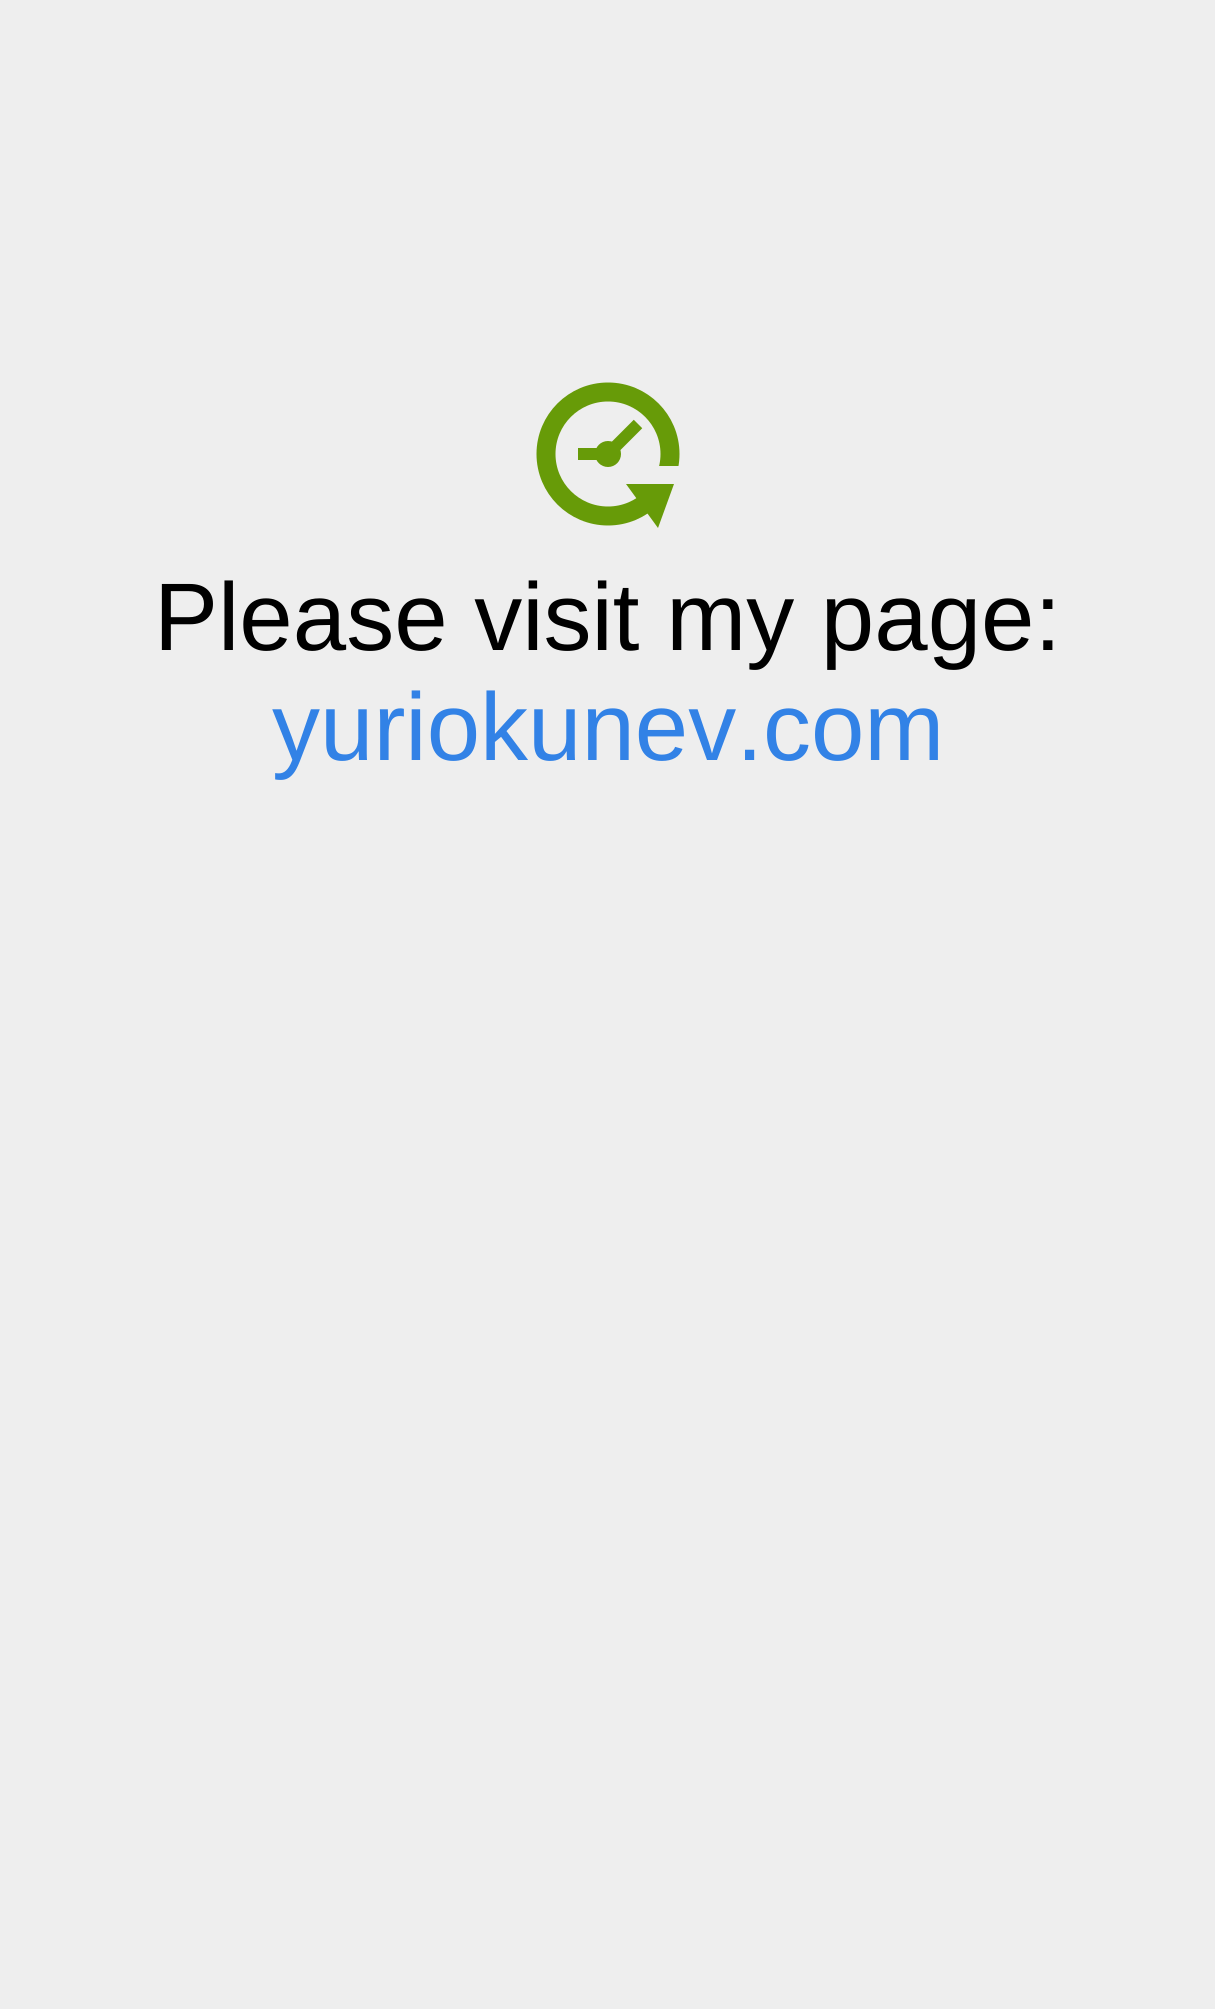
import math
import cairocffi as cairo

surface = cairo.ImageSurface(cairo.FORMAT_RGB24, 1215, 2009)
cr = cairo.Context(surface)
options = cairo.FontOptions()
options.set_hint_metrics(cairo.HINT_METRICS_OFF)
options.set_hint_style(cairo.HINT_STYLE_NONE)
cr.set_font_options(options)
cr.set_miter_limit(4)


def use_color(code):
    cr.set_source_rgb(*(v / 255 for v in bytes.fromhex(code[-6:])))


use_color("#eeeeee")
cr.paint()
cr.arc(608, 454, 62, 0, 2 * math.pi)
use_color("#679b08")
cr.set_line_width(19)
cr.stroke()
cr.arc(608, 454, 12, 0, 2 * math.pi)
cr.fill_preserve()
cr.set_line_width(2)
cr.stroke()
cr.new_path()
cr.move_to(638, 424)
cr.line_to(608, 454)
cr.set_line_width(12)
cr.stroke()
cr.rectangle(578, 448, 19, 12)
cr.fill()
use_color("#eeeeee")
cr.rectangle(651, 466, 28, 18)
cr.fill()
use_color("#679b08")
cr.new_path()
cr.move_to(626, 484)
cr.line_to(674, 484)
cr.line_to(658, 528)
cr.close_path()
cr.fill()
cr.select_font_face("Liberation Sans")
cr.set_font_size(96)
use_color("#000000")
cr.move_to(154, 650)
cr.show_text("Please visit my page:")
use_color("#3282e6")
cr.move_to(272, 760)
cr.show_text("yuriokunev.com")
surface.write_to_png("result.png")
